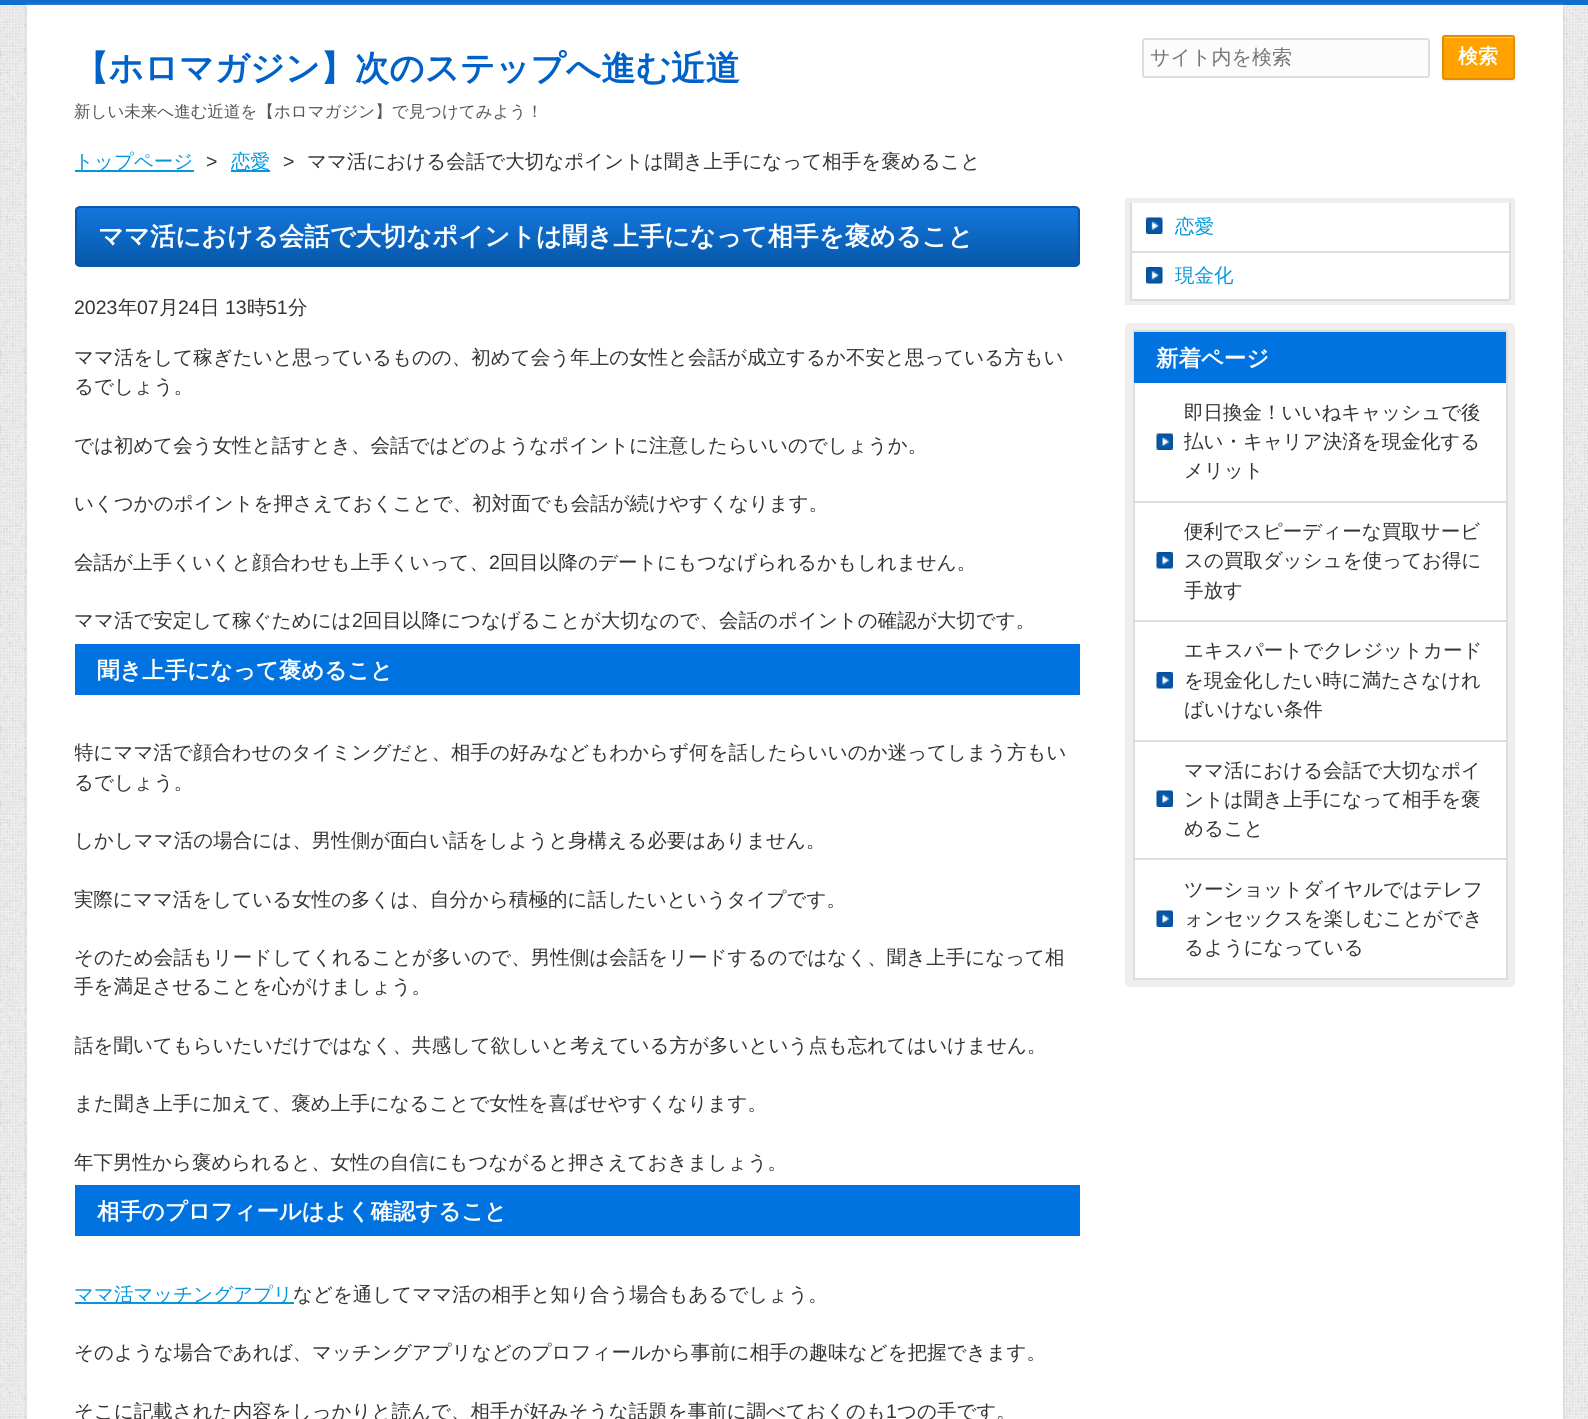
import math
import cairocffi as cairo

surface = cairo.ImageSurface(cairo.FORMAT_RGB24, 1588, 1419)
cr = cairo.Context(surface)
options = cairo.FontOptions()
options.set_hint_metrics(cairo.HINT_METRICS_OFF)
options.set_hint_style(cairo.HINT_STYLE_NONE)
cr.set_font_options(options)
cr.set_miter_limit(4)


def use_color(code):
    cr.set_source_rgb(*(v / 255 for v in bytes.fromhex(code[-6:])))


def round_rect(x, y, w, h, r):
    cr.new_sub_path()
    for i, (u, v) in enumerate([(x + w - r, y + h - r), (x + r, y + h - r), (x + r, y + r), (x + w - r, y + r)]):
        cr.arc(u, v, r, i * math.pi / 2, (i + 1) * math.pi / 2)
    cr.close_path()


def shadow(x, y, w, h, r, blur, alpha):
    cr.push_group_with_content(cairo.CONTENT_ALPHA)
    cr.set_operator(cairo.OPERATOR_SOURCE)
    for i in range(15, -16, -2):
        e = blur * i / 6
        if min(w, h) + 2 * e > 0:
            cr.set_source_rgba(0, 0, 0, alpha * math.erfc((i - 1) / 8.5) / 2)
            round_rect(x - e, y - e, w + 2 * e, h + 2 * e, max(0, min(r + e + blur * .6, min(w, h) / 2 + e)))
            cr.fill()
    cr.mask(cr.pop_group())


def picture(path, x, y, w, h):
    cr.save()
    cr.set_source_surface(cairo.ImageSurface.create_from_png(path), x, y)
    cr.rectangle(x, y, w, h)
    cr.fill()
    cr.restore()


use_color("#ffffff")
cr.paint()
picture("img1.png", 0, 5, 1588, 1414)
use_color("#106ecf")
cr.rectangle(0, 0, 1588, 5)
cr.fill()
use_color("#cccccc")
shadow(27, 6, 1536, 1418, 0, 1.5, 1)
use_color("#ffffff")
cr.rectangle(27, 5, 1536, 1414)
cr.fill()
cr.select_font_face("WenQuanYi Zen Hei", cairo.FONT_SLANT_NORMAL, cairo.FONT_WEIGHT_BOLD)
cr.set_font_size(34.5)
use_color("#0061c9")
cr.move_to(74, 80)
cr.show_text("【ホロマガジン】次のステップへ進む近道")
cr.select_font_face("WenQuanYi Zen Hei Medium")
cr.set_font_size(16.5)
use_color("#555555")
cr.move_to(74, 117)
cr.show_text("新しい未来へ進む近道を【ホロマガジン】で見つけてみよう！")
use_color("#fcfcfc")
round_rect(1142, 38, 288, 40, 3)
cr.fill()
use_color("#e3e3e3")
cr.new_path()
cr.move_to(1144, 40)
cr.line_to(1426, 40)
cr.curve_to(1427, 40, 1428, 41, 1428, 42)
cr.curve_to(1428, 41, 1428, 39, 1426, 39)
cr.line_to(1144, 39)
cr.line_to(1143, 39)
cr.line_to(1143, 42)
cr.close_path()
cr.fill()
round_rect(1143, 39, 286, 38, 2)
use_color("#dddddd")
cr.stroke()
cr.set_font_size(20)
use_color("#757575")
cr.move_to(1150, 64)
cr.show_text("サイト内を検索")
use_color("#000000")
shadow(1442, 36, 73, 45, 3, 1, 0.1)
use_color("#ffa200")
round_rect(1442, 35, 73, 45, 3)
cr.fill()
use_color("#ffc766")
cr.new_path()
cr.move_to(1444, 38)
cr.line_to(1512, 38)
cr.curve_to(1513, 38, 1514, 38, 1514, 39)
cr.curve_to(1514, 33, 1507, 36, 1501, 36)
cr.line_to(1456, 36)
cr.curve_to(1450, 36, 1443, 33, 1443, 39)
cr.close_path()
cr.fill()
round_rect(1443, 36, 71, 43, 2)
use_color("#e38e00")
cr.stroke()
cr.select_font_face("WenQuanYi Zen Hei", cairo.FONT_SLANT_NORMAL, cairo.FONT_WEIGHT_BOLD)
use_color("#ffffff")
cr.move_to(1458, 63)
cr.show_text("検索")
use_color("#0597dc")
cr.rectangle(75, 170, 119, 2)
cr.fill()
cr.select_font_face("WenQuanYi Zen Hei Medium")
cr.set_font_size(19.5)
cr.move_to(74, 168)
cr.show_text("トップページ")
cr.select_font_face("Liberation Sans")
use_color("#333333")
cr.move_to(206, 168)
cr.show_text(">")
use_color("#0597dc")
cr.rectangle(231, 170, 39, 2)
cr.fill()
cr.select_font_face("WenQuanYi Zen Hei Medium")
cr.move_to(231, 168)
cr.show_text("恋愛")
cr.select_font_face("Liberation Sans")
use_color("#333333")
cr.move_to(283, 168)
cr.show_text(">")
cr.select_font_face("WenQuanYi Zen Hei Medium")
cr.move_to(307, 168)
cr.show_text("ママ活における会話で大切なポイントは聞き上手になって相手を褒めること")
cr.save()
round_rect(75, 206, 1005, 61, 5)
cr.clip()
gradient = cairo.LinearGradient(578, 207, 578, 266)
gradient.add_color_stop_rgba(0, 0.075, 0.467, 0.871, 1)
gradient.add_color_stop_rgba(1, 0.024, 0.341, 0.663, 1)
cr.set_source(gradient)
cr.rectangle(75, 207, 1005, 59)
cr.fill()
cr.restore()
round_rect(76, 207, 1003, 59, 4)
use_color("#0758aa")
cr.stroke()
cr.select_font_face("WenQuanYi Zen Hei", cairo.FONT_SLANT_NORMAL, cairo.FONT_WEIGHT_BOLD)
cr.set_font_size(25.35)
use_color("#ffffff")
cr.move_to(98, 245)
cr.show_text("ママ活における会話で大切なポイントは聞き上手になって相手を褒めること")
cr.select_font_face("Liberation Sans")
cr.set_font_size(19.5)
use_color("#333333")
cr.move_to(74, 314)
cr.show_text("2023")
cr.select_font_face("WenQuanYi Zen Hei Medium")
cr.move_to(118, 314)
cr.show_text("年")
cr.select_font_face("Liberation Sans")
cr.move_to(137, 314)
cr.show_text("07")
cr.select_font_face("WenQuanYi Zen Hei Medium")
cr.move_to(159, 314)
cr.show_text("月")
cr.select_font_face("Liberation Sans")
cr.move_to(178, 314)
cr.show_text("24")
cr.select_font_face("WenQuanYi Zen Hei Medium")
cr.move_to(200, 314)
cr.show_text("日")
cr.select_font_face("Liberation Sans")
cr.move_to(225, 314)
cr.show_text("13")
cr.select_font_face("WenQuanYi Zen Hei Medium")
cr.move_to(247, 314)
cr.show_text("時")
cr.select_font_face("Liberation Sans")
cr.move_to(266, 314)
cr.show_text("51")
cr.select_font_face("WenQuanYi Zen Hei Medium")
cr.move_to(288, 314)
cr.show_text("分")
cr.move_to(74, 364)
cr.show_text("ママ活をして稼ぎたいと思っているものの、初めて会う年上の女性と会話が成立するか不安と思っている方もい")
cr.move_to(74, 393)
cr.show_text("るでしょう。")
cr.move_to(74, 452)
cr.show_text("では初めて会う女性と話すとき、会話ではどのようなポイントに注意したらいいのでしょうか。")
cr.move_to(74, 510)
cr.show_text("いくつかのポイントを押さえておくことで、初対面でも会話が続けやすくなります。")
cr.move_to(74, 569)
cr.show_text("会話が上手くいくと顔合わせも上手くいって、")
cr.select_font_face("Liberation Sans")
cr.move_to(489, 569)
cr.show_text("2")
cr.select_font_face("WenQuanYi Zen Hei Medium")
cr.move_to(500, 569)
cr.show_text("回目以降のデートにもつなげられるかもしれません。")
cr.move_to(74, 627)
cr.show_text("ママ活で安定して稼ぐためには")
cr.select_font_face("Liberation Sans")
cr.move_to(352, 627)
cr.show_text("2")
cr.select_font_face("WenQuanYi Zen Hei Medium")
cr.move_to(363, 627)
cr.show_text("回目以降につなげることが大切なので、会話のポイントの確認が大切です。")
use_color("#0073e1")
cr.rectangle(75, 644, 1005, 51)
cr.fill()
cr.select_font_face("WenQuanYi Zen Hei", cairo.FONT_SLANT_NORMAL, cairo.FONT_WEIGHT_BOLD)
cr.set_font_size(22.4)
use_color("#ffffff")
cr.move_to(97, 678)
cr.show_text("聞き上手になって褒めること")
cr.save()
cr.rectangle(75, 198, 1440, 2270)
cr.clip()
cr.select_font_face("WenQuanYi Zen Hei Medium")
cr.set_font_size(19.5)
use_color("#333333")
cr.move_to(74, 759)
cr.show_text("特にママ活で顔合わせのタイミングだと、相手の好みなどもわからず何を話したらいいのか迷ってしまう方もい")
cr.restore()
cr.select_font_face("WenQuanYi Zen Hei Medium")
cr.set_font_size(19.5)
use_color("#333333")
cr.move_to(74, 789)
cr.show_text("るでしょう。")
cr.move_to(74, 847)
cr.show_text("しかしママ活の場合には、男性側が面白い話をしようと身構える必要はありません。")
cr.move_to(74, 906)
cr.show_text("実際にママ活をしている女性の多くは、自分から積極的に話したいというタイプです。")
cr.move_to(74, 964)
cr.show_text("そのため会話もリードしてくれることが多いので、男性側は会話をリードするのではなく、聞き上手になって相")
cr.move_to(74, 993)
cr.show_text("手を満足させることを心がけましょう。")
cr.save()
cr.rectangle(75, 198, 1440, 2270)
cr.clip()
cr.move_to(74, 1052)
cr.show_text("話を聞いてもらいたいだけではなく、共感して欲しいと考えている方が多いという点も忘れてはいけません。")
cr.restore()
cr.move_to(74, 1110)
cr.show_text("また聞き上手に加えて、褒め上手になることで女性を喜ばせやすくなります。")
cr.move_to(74, 1169)
cr.show_text("年下男性から褒められると、女性の自信にもつながると押さえておきましょう。")
use_color("#0073e1")
cr.rectangle(75, 1185, 1005, 51)
cr.fill()
cr.select_font_face("WenQuanYi Zen Hei", cairo.FONT_SLANT_NORMAL, cairo.FONT_WEIGHT_BOLD)
cr.set_font_size(22.4)
use_color("#ffffff")
cr.move_to(97, 1219)
cr.show_text("相手のプロフィールはよく確認すること")
use_color("#0597dc")
cr.rectangle(75, 1302, 219, 2)
cr.fill()
cr.select_font_face("WenQuanYi Zen Hei Medium")
cr.set_font_size(19.5)
cr.move_to(74, 1301)
cr.show_text("ママ活マッチングアプリ")
use_color("#333333")
cr.move_to(293, 1301)
cr.show_text("などを通してママ活の相手と知り合う場合もあるでしょう。")
cr.move_to(74, 1359)
cr.show_text("そのような場合であれば、マッチングアプリなどのプロフィールから事前に相手の趣味などを把握できます。")
cr.move_to(74, 1418)
cr.show_text("そこに記載された内容をしっかりと読んで、相手が好みそうな話題を事前に調べておくのも")
cr.select_font_face("Liberation Sans")
cr.move_to(886, 1418)
cr.show_text("1")
cr.select_font_face("WenQuanYi Zen Hei Medium")
cr.move_to(897, 1418)
cr.show_text("つの手です。")
cr.rectangle(1127.5, 200.5, 385, 102)
use_color("#eeeeee")
cr.set_line_width(5)
cr.stroke()
use_color("#dddddd")
cr.rectangle(1509, 203, 2, 97)
cr.fill()
cr.rectangle(1130, 203, 2, 97)
cr.fill()
cr.rectangle(1131, 251, 378, 2)
cr.fill()
picture("img2.png", 1146, 217, 17, 17)
use_color("#0597dc")
cr.move_to(1175, 233)
cr.show_text("恋愛")
use_color("#dddddd")
cr.rectangle(1131, 299, 378, 2)
cr.fill()
picture("img3.png", 1146, 267, 17, 17)
use_color("#0597dc")
cr.move_to(1175, 282)
cr.show_text("現金化")
round_rect(1129, 327, 382, 656, 1)
use_color("#eeeeee")
cr.set_line_width(8)
cr.stroke()
use_color("#dddddd")
cr.rectangle(1133, 330, 375, 2)
cr.fill()
cr.rectangle(1506, 330, 2, 650)
cr.fill()
cr.rectangle(1133, 330, 2, 650)
cr.fill()
use_color("#0073e1")
cr.rectangle(1134, 332, 372, 51)
cr.fill()
cr.select_font_face("WenQuanYi Zen Hei", cairo.FONT_SLANT_NORMAL, cairo.FONT_WEIGHT_BOLD)
cr.set_font_size(22.4)
use_color("#ffffff")
cr.move_to(1156, 366)
cr.show_text("新着ページ")
use_color("#dddddd")
cr.rectangle(1134, 501, 372, 2)
cr.fill()
picture("img4.png", 1156, 433, 17, 17)
cr.select_font_face("WenQuanYi Zen Hei Medium")
cr.set_font_size(19.5)
use_color("#333333")
cr.move_to(1184, 419)
cr.show_text("即日換金！いいねキャッシュで後")
cr.move_to(1184, 448)
cr.show_text("払い・キャリア決済を現金化する")
cr.move_to(1184, 477)
cr.show_text("メリット")
use_color("#dddddd")
cr.rectangle(1134, 620, 372, 2)
cr.fill()
picture("img5.png", 1156, 552, 17, 17)
use_color("#333333")
cr.move_to(1184, 538)
cr.show_text("便利でスピーディーな買取サービ")
cr.move_to(1184, 567)
cr.show_text("スの買取ダッシュを使ってお得に")
cr.move_to(1184, 597)
cr.show_text("手放す")
use_color("#dddddd")
cr.rectangle(1134, 740, 372, 2)
cr.fill()
picture("img5.png", 1156, 672, 17, 17)
use_color("#333333")
cr.move_to(1184, 657)
cr.show_text("エキスパートでクレジットカード")
cr.move_to(1184, 687)
cr.show_text("を現金化したい時に満たさなけれ")
cr.move_to(1184, 716)
cr.show_text("ばいけない条件")
use_color("#dddddd")
cr.rectangle(1134, 858, 372, 2)
cr.fill()
picture("img4.png", 1156, 790, 17, 17)
use_color("#333333")
cr.move_to(1184, 777)
cr.show_text("ママ活における会話で大切なポイ")
cr.move_to(1184, 806)
cr.show_text("ントは聞き上手になって相手を褒")
cr.move_to(1184, 835)
cr.show_text("めること")
use_color("#dddddd")
cr.rectangle(1134, 978, 372, 2)
cr.fill()
picture("img4.png", 1156, 910, 17, 17)
use_color("#333333")
cr.move_to(1184, 896)
cr.show_text("ツーショットダイヤルではテレフ")
cr.move_to(1184, 925)
cr.show_text("ォンセックスを楽しむことができ")
cr.move_to(1184, 954)
cr.show_text("るようになっている")
surface.write_to_png("result.png")
